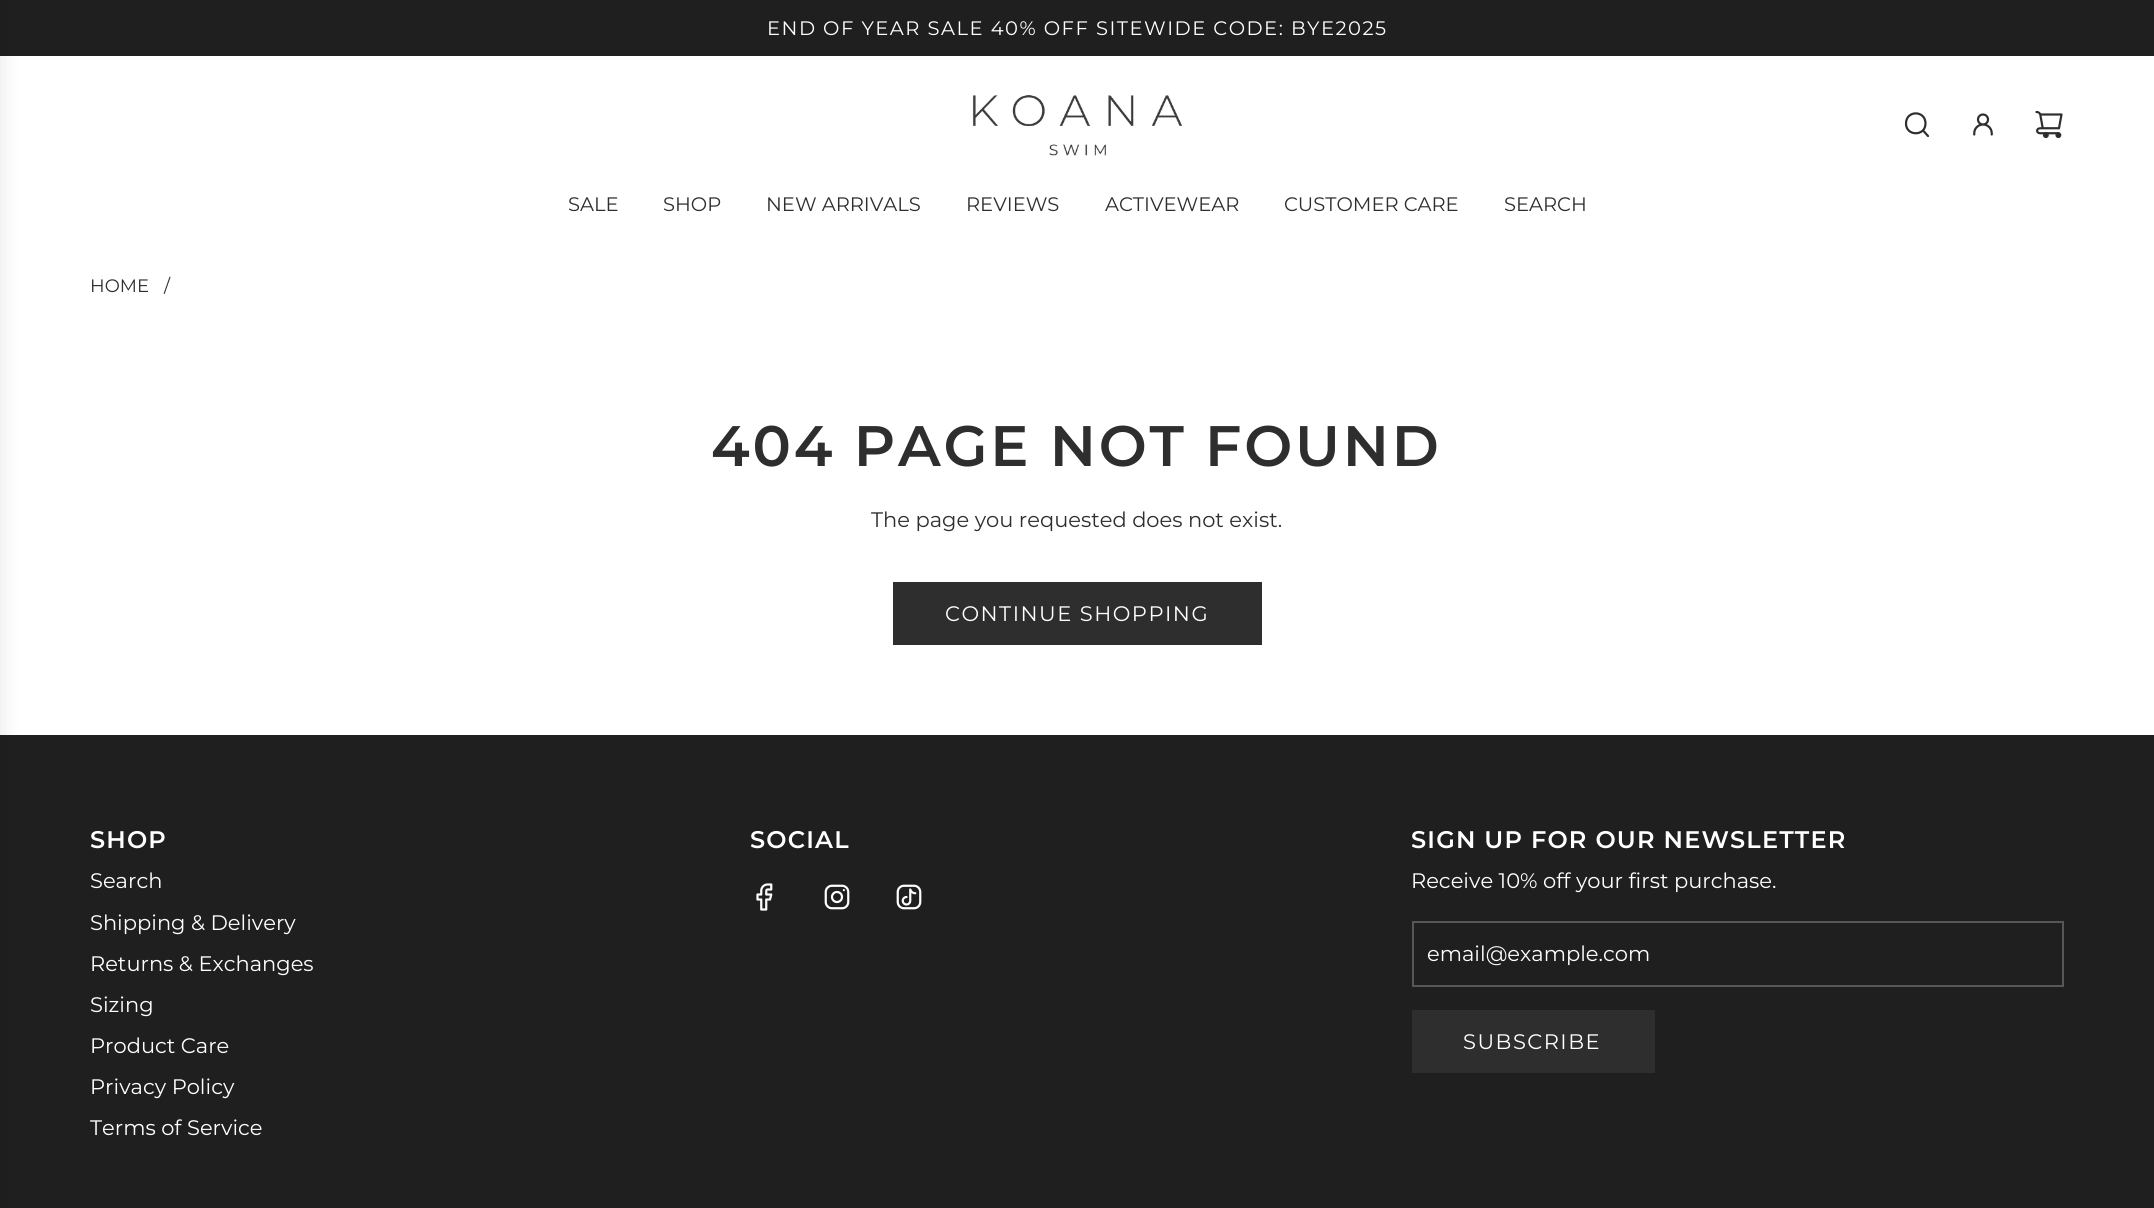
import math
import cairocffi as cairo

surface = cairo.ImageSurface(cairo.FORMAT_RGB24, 2154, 1208)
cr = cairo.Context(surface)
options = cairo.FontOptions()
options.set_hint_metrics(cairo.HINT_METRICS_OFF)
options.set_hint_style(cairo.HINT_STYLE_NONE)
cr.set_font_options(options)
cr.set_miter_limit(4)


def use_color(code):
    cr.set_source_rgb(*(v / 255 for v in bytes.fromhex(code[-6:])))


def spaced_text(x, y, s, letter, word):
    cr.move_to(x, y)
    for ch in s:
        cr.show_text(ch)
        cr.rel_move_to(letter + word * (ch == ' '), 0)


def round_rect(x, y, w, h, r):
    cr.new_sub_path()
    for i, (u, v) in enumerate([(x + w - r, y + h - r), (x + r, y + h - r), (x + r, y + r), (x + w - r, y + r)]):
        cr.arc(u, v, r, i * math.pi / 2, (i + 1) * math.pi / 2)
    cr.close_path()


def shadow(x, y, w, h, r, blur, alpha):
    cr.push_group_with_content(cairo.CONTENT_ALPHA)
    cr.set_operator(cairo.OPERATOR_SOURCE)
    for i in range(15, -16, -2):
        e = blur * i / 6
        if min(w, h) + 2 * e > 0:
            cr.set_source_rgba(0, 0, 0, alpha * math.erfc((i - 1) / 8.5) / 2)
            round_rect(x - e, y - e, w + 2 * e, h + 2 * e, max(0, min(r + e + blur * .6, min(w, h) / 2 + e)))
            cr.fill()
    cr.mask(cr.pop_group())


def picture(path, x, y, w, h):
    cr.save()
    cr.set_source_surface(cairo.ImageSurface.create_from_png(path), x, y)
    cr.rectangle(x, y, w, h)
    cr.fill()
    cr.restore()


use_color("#ffffff")
cr.paint()
use_color("#1f1f1f")
cr.rectangle(0, 0, 2154, 56)
cr.fill()
cr.select_font_face("Montserrat")
cr.set_font_size(19.5)
use_color("#ffffff")
spaced_text(767, 35, "END OF YEAR SALE 40% OFF SITEWIDE CODE: BYE2025", 1.5, 0)
use_color("#1f1f1f")
cr.rectangle(0, 735, 2154, 473)
cr.fill()
use_color("#000000")
shadow(-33, 8, 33, 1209, 0, 11, 0.1)
picture("img1.png", 972, 95, 211, 61)
cr.new_path()
cr.move_to(1923.5, 131)
cr.line_to(1928, 136)
cr.move_to(1906, 123.5)
cr.curve_to(1906, 136.5, 1925.5, 136.5, 1925.5, 123.5)
cr.curve_to(1925.5, 110, 1906, 110, 1906, 123.5)
cr.close_path()
use_color("#2e2e2e")
cr.set_line_width(2.2)
cr.set_line_cap(cairo.LINE_CAP_ROUND)
cr.set_line_join(cairo.LINE_JOIN_ROUND)
cr.stroke()
picture("img2.png", 1973, 113, 20, 23)
picture("img3.png", 2035, 110, 28, 29)
cr.move_to(568, 211)
cr.show_text("SALE")
cr.move_to(663, 211)
cr.show_text("SHOP")
cr.move_to(766, 211)
cr.show_text("NEW ARRIVALS")
cr.move_to(966, 211)
cr.show_text("REVIEWS")
cr.move_to(1105, 211)
cr.show_text("ACTIVEWEAR")
cr.move_to(1284, 211)
cr.show_text("CUSTOMER CARE")
cr.move_to(1504, 211)
cr.show_text("SEARCH")
cr.set_font_size(18)
cr.move_to(90, 292)
cr.show_text("HOME")
cr.move_to(164, 292)
cr.show_text("/")
cr.select_font_face("Montserrat SemiBold")
cr.set_font_size(57)
spaced_text(711, 466, "404 PAGE NOT FOUND", 2.8, 0)
cr.select_font_face("Montserrat")
cr.set_font_size(21)
cr.move_to(871, 527)
cr.show_text("The page you requested does not exist.")
cr.rectangle(893, 582, 369, 63)
cr.fill()
use_color("#ffffff")
spaced_text(945, 621, "CONTINUE SHOPPING", 1.5, 0)
cr.select_font_face("Montserrat SemiBold")
cr.set_font_size(24)
spaced_text(90, 848, "SHOP", 1.2, 0)
cr.select_font_face("Montserrat")
cr.set_font_size(21)
cr.move_to(90, 888)
cr.show_text("Search")
cr.move_to(90, 930)
cr.show_text("Shipping & Delivery")
cr.move_to(90, 971)
cr.show_text("Returns & Exchanges")
cr.move_to(90, 1012)
cr.show_text("Sizing")
cr.move_to(90, 1053)
cr.show_text("Product Care")
cr.move_to(90, 1094)
cr.show_text("Privacy Policy")
cr.move_to(90, 1135)
cr.show_text("Terms of Service")
cr.select_font_face("Montserrat SemiBold")
cr.set_font_size(24)
spaced_text(750, 848, "SOCIAL", 1.2, 0)
picture("img4.png", 756, 883, 17, 28)
picture("img5.png", 824, 884, 26, 26)
picture("img6.png", 896, 884, 26, 26)
spaced_text(1411, 848, "SIGN UP FOR OUR NEWSLETTER", 1.2, 0)
cr.select_font_face("Montserrat")
cr.set_font_size(21)
cr.move_to(1411, 888)
cr.show_text("Receive 10% off your first purchase.")
cr.rectangle(1413, 922, 650, 64)
use_color("#575757")
cr.set_line_width(2)
cr.set_line_cap(cairo.LINE_CAP_BUTT)
cr.set_line_join(cairo.LINE_JOIN_MITER)
cr.stroke()
use_color("#ffffff")
cr.move_to(1427, 961)
cr.show_text("email@example.com")
use_color("#2e2e2e")
cr.rectangle(1412, 1010, 243, 63)
cr.fill()
use_color("#ffffff")
spaced_text(1463, 1049, "SUBSCRIBE", 1.5, 0)
surface.write_to_png("result.png")
